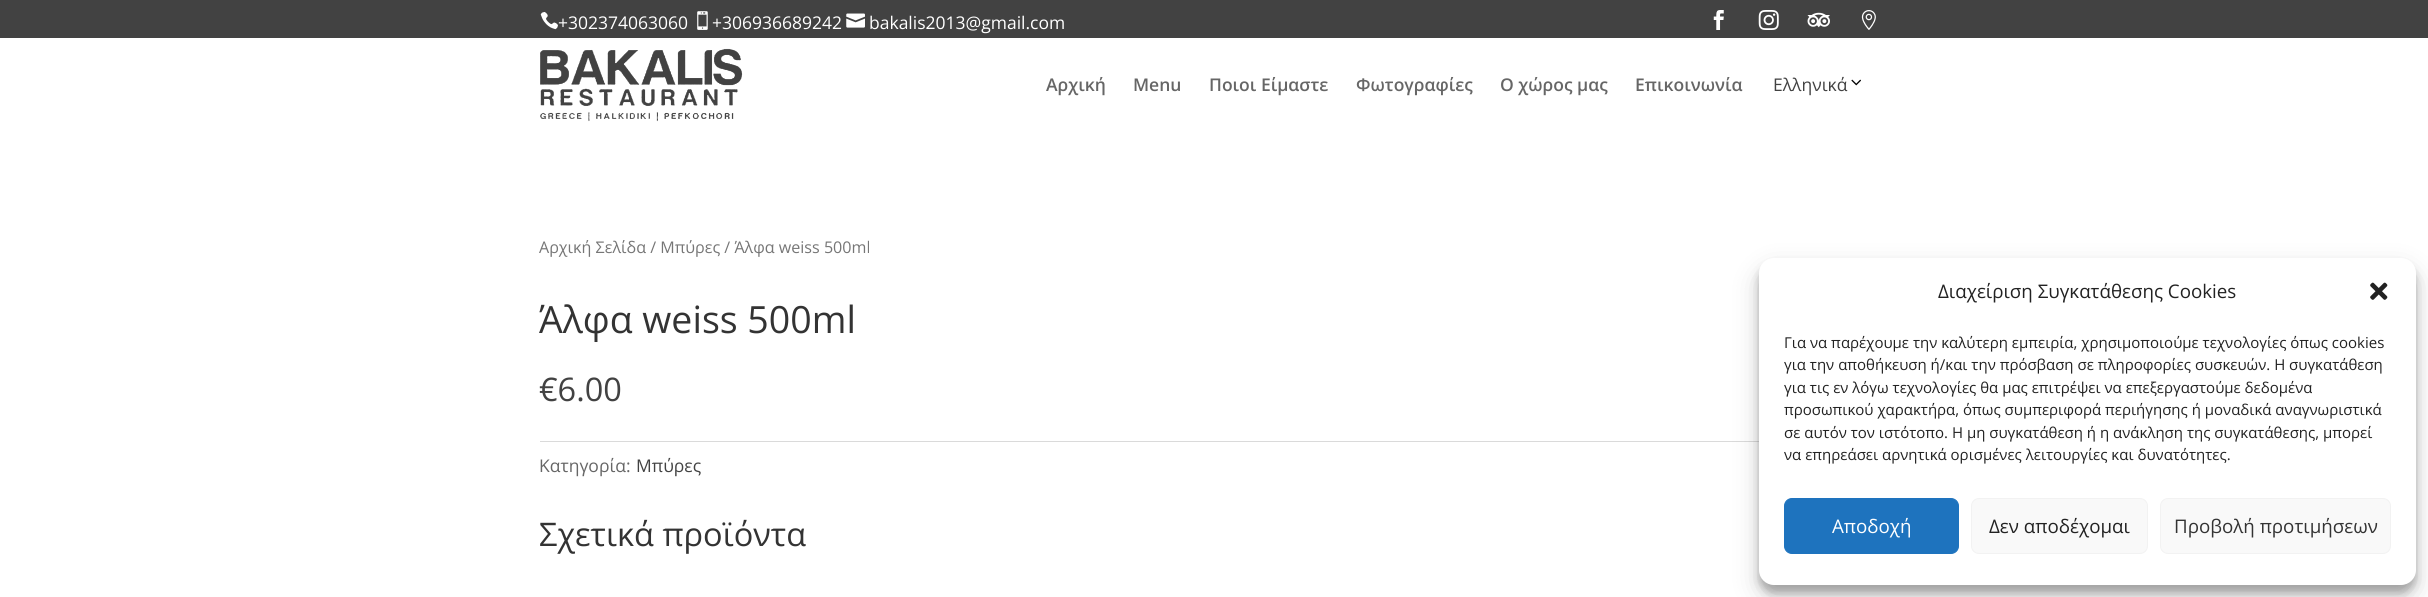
import math
import cairocffi as cairo

surface = cairo.ImageSurface(cairo.FORMAT_RGB24, 2428, 597)
cr = cairo.Context(surface)
options = cairo.FontOptions()
options.set_hint_metrics(cairo.HINT_METRICS_OFF)
options.set_hint_style(cairo.HINT_STYLE_NONE)
cr.set_font_options(options)
cr.set_miter_limit(4)


def use_color(code):
    cr.set_source_rgb(*(v / 255 for v in bytes.fromhex(code[-6:])))


def round_rect(x, y, w, h, r):
    cr.new_sub_path()
    for i, (u, v) in enumerate([(x + w - r, y + h - r), (x + r, y + h - r), (x + r, y + r), (x + w - r, y + r)]):
        cr.arc(u, v, r, i * math.pi / 2, (i + 1) * math.pi / 2)
    cr.close_path()


def shadow(x, y, w, h, r, blur, alpha):
    cr.push_group_with_content(cairo.CONTENT_ALPHA)
    cr.set_operator(cairo.OPERATOR_SOURCE)
    for i in range(15, -16, -2):
        e = blur * i / 6
        if min(w, h) + 2 * e > 0:
            cr.set_source_rgba(0, 0, 0, alpha * math.erfc((i - 1) / 8.5) / 2)
            round_rect(x - e, y - e, w + 2 * e, h + 2 * e, max(0, min(r + e + blur * .6, min(w, h) / 2 + e)))
            cr.fill()
    cr.mask(cr.pop_group())


def picture(path, x, y, w, h):
    cr.save()
    cr.set_source_surface(cairo.ImageSurface.create_from_png(path), x, y)
    cr.rectangle(x, y, w, h)
    cr.fill()
    cr.restore()


use_color("#ffffff")
cr.paint()
use_color("#424242")
cr.rectangle(0, 0, 2428, 38)
cr.fill()
picture("img1.png", 540, 12, 18, 18)
cr.select_font_face("Open Sans")
cr.set_font_size(17.5)
use_color("#ffffff")
cr.move_to(558, 29)
cr.show_text("+302374063060")
picture("img2.png", 697, 11, 11, 19)
cr.move_to(712, 29)
cr.show_text("+306936689242")
picture("img3.png", 846, 13, 19, 15)
cr.move_to(869, 29)
cr.show_text("bakalis2013@gmail.com")
picture("img4.png", 1713, 10, 11, 20)
picture("img5.png", 1758, 10, 21, 20)
picture("img6.png", 1807, 12, 23, 16)
picture("img7.png", 1861, 10, 15, 20)
picture("img8.png", 540, 48, 203, 74)
cr.select_font_face("Open Sans SemiBold")
use_color("#666666")
cr.move_to(1046, 91)
cr.show_text("Αρχική")
cr.move_to(1133, 91)
cr.show_text("Menu")
cr.move_to(1209, 91)
cr.show_text("Ποιοι Είμαστε")
cr.move_to(1356, 91)
cr.show_text("Φωτογραφίες")
cr.move_to(1500, 91)
cr.show_text("Ο χώρος μας")
cr.move_to(1635, 91)
cr.show_text("Επικοινωνία")
cr.select_font_face("Open Sans")
use_color("#424242")
cr.move_to(1773, 91)
cr.show_text("Ελληνικά")
picture("img9.png", 1851, 79, 10, 7)
cr.set_font_size(16.1)
use_color("#767676")
cr.move_to(539, 253)
cr.show_text("Αρχική Σελίδα / Μπύρες / Άλφα weiss 500ml")
cr.set_font_size(37.5)
use_color("#333333")
cr.move_to(539, 333)
cr.show_text("Άλφα weiss 500ml")
cr.set_font_size(32.5)
use_color("#424242")
cr.move_to(539, 401)
cr.show_text("€6.00")
use_color("#dadada")
cr.rectangle(540, 441, 1219, 1)
cr.fill()
cr.set_font_size(17.5)
use_color("#666666")
cr.move_to(539, 472)
cr.show_text("Κατηγορία:")
use_color("#424242")
cr.move_to(636, 472)
cr.show_text("Μπύρες")
cr.set_font_size(32.5)
use_color("#333333")
cr.move_to(539, 546)
cr.show_text("Σχετικά προϊόντα")
use_color("#000000")
shadow(1759, 265, 657, 328, 15, 4, 0.23)
shadow(1759, 270, 657, 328, 15, 12.5, 0.19)
use_color("#ffffff")
round_rect(1759, 258, 657, 327, 15)
cr.fill()
cr.set_font_size(18.75)
use_color("#222222")
cr.move_to(1938, 298)
cr.show_text("Διαχείριση Συγκατάθεσης Cookies")
picture("img10.png", 2370, 282, 18, 18)
cr.set_font_size(15)
cr.move_to(1784, 348)
cr.show_text("Για να παρέχουμε την καλύτερη εμπειρία, χρησιμοποιούμε τεχνολογίες όπως cookies")
cr.move_to(1784, 370)
cr.show_text("για την αποθήκευση ή/και την πρόσβαση σε πληροφορίες συσκευών. Η συγκατάθεση")
cr.move_to(1784, 393)
cr.show_text("για τις εν λόγω τεχνολογίες θα μας επιτρέψει να επεξεργαστούμε δεδομένα")
cr.move_to(1784, 415)
cr.show_text("προσωπικού χαρακτήρα, όπως συμπεριφορά περιήγησης ή μοναδικά αναγνωριστικά")
cr.move_to(1784, 438)
cr.show_text("σε αυτόν τον ιστότοπο. Η μη συγκατάθεση ή η ανάκληση της συγκατάθεσης, μπορεί")
cr.move_to(1784, 460)
cr.show_text("να επηρεάσει αρνητικά ορισμένες λειτουργίες και δυνατότητες.")
use_color("#1e73be")
round_rect(1784.5, 498.5, 174, 55, 7.5)
cr.fill_preserve()
cr.set_line_width(1)
cr.stroke()
cr.set_font_size(18.75)
use_color("#ffffff")
cr.move_to(1832, 533)
cr.show_text("Αποδοχή")
use_color("#f9f9f9")
round_rect(1971.5, 498.5, 176, 55, 7.5)
cr.fill_preserve()
use_color("#f2f2f2")
cr.stroke()
use_color("#222222")
cr.move_to(1989, 533)
cr.show_text("Δεν αποδέχομαι")
use_color("#f9f9f9")
round_rect(2160.5, 498.5, 230, 55, 7.5)
cr.fill_preserve()
use_color("#f2f2f2")
cr.stroke()
use_color("#333333")
cr.move_to(2174, 533)
cr.show_text("Προβολή προτιμήσεων")
surface.write_to_png("result.png")
